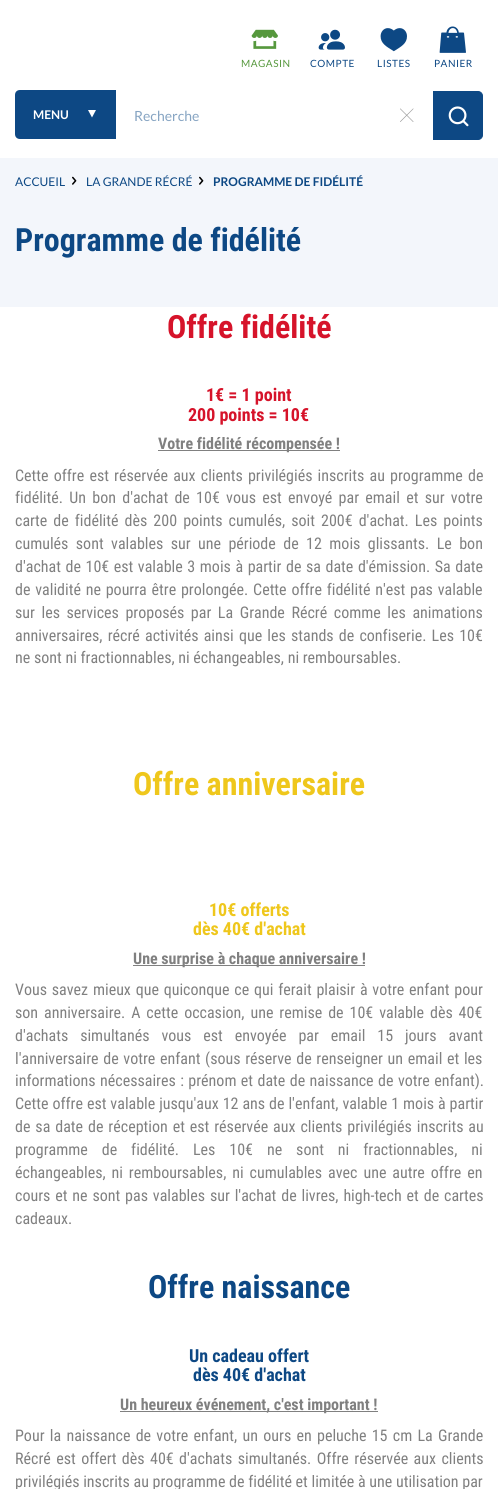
import math
import cairocffi as cairo

surface = cairo.ImageSurface(cairo.FORMAT_RGB24, 498, 1489)
cr = cairo.Context(surface)
options = cairo.FontOptions()
options.set_hint_metrics(cairo.HINT_METRICS_OFF)
options.set_hint_style(cairo.HINT_STYLE_NONE)
cr.set_font_options(options)
cr.set_miter_limit(4)


def use_color(code):
    cr.set_source_rgb(*(v / 255 for v in bytes.fromhex(code[-6:])))


def spaced_text(x, y, s, letter, word):
    cr.move_to(x, y)
    for ch in s:
        cr.show_text(ch)
        cr.rel_move_to(letter + word * (ch == ' '), 0)


def picture(path, x, y, w, h):
    cr.save()
    cr.set_source_surface(cairo.ImageSurface.create_from_png(path), x, y)
    cr.rectangle(x, y, w, h)
    cr.fill()
    cr.restore()


use_color("#ffffff")
cr.paint()
picture("img1.png", 251, 29, 27, 20)
cr.select_font_face("Lato")
cr.set_font_size(10)
use_color("#56983d")
spaced_text(241, 67, "MAGASIN", 0.5, 0)
picture("img2.png", 318, 29, 27, 21)
use_color("#0d4884")
spaced_text(310, 67, "COMPTE", 0.5, 0)
picture("img3.png", 380, 28, 27, 24)
spaced_text(377, 67, "LISTES", 0.5, 0)
picture("img4.png", 439, 26, 27, 27)
spaced_text(434, 67, "PANIER", 0.5, 0)
cr.new_path()
cr.move_to(20, 90)
cr.line_to(116, 90)
cr.line_to(116, 139)
cr.line_to(20, 139)
cr.curve_to(17, 139, 15, 137, 15, 134)
cr.line_to(15, 95)
cr.curve_to(15, 92, 17, 90, 20, 90)
cr.close_path()
cr.fill()
cr.select_font_face("Lato", cairo.FONT_SLANT_NORMAL, cairo.FONT_WEIGHT_BOLD)
cr.set_font_size(12)
use_color("#ffffff")
cr.move_to(33, 119)
cr.show_text("MENU")
cr.new_path()
cr.move_to(92, 117.5)
cr.line_to(88, 110)
cr.line_to(96, 110)
cr.close_path()
cr.fill()
cr.select_font_face("Lato")
cr.set_font_size(14)
use_color("#86a4c2")
cr.move_to(134, 121)
cr.show_text("Recherche")
picture("img5.png", 400, 108, 14, 14)
use_color("#0d4884")
cr.new_path()
cr.move_to(433.5, 91.5)
cr.line_to(478, 91.5)
cr.curve_to(480.5, 91.5, 482.5, 93.5, 482.5, 96)
cr.line_to(482.5, 135)
cr.curve_to(482.5, 137.5, 480.5, 139.5, 478, 139.5)
cr.line_to(433.5, 139.5)
cr.close_path()
cr.fill_preserve()
cr.set_line_width(1)
cr.stroke()
picture("img6.png", 448, 106, 21, 21)
use_color("#f3f6fb")
cr.rectangle(0, 158, 498, 149)
cr.fill()
cr.set_font_size(12)
use_color("#0d4884")
cr.move_to(15, 186)
cr.show_text("ACCUEIL")
picture("img7.png", 72, 176, 5, 9)
cr.move_to(86, 186)
cr.show_text("LA GRANDE RÉCRÉ")
picture("img7.png", 199, 176, 5, 9)
cr.select_font_face("Lato", cairo.FONT_SLANT_NORMAL, cairo.FONT_WEIGHT_BOLD)
cr.move_to(213, 186)
cr.show_text("PROGRAMME DE FIDÉLITÉ")
cr.select_font_face("Roboto Condensed", cairo.FONT_SLANT_NORMAL, cairo.FONT_WEIGHT_BOLD)
cr.set_font_size(32)
cr.move_to(15, 251)
cr.show_text("Programme de fidélité")
use_color("#d6132a")
cr.move_to(167, 338)
cr.show_text("Offre fidélité")
cr.set_font_size(18)
cr.move_to(206, 401)
cr.show_text("1€ = 1 point")
cr.move_to(188, 421)
cr.show_text("200 points = 10€")
use_color("#808080")
cr.rectangle(158, 450, 182, 1)
cr.fill()
cr.set_font_size(16)
cr.move_to(158, 449)
cr.show_text("Votre fidélité récompensée !")
cr.select_font_face("Roboto Condensed")
spaced_text(15, 481, "Cette offre est réservée aux clients privilégiés inscrits au programme de", 0, 1.5)
spaced_text(15, 503, "fidélité. Un bon d'achat de 10€ vous est envoyé par email et sur votre", 0, 2.6)
spaced_text(15, 526, "carte de fidélité dès 200 points cumulés, soit 200€ d'achat. Les points", 0, 2.4)
spaced_text(15, 549, "cumulés sont valables sur une période de 12 mois glissants. Le bon", 0, 3.75)
spaced_text(15, 572, "d'achat de 10€ est valable 3 mois à partir de sa date d'émission. Sa date", 0, 0.9)
spaced_text(15, 595, "de validité ne pourra être prolongée. Cette offre fidélité n'est pas valable", 0, 1.1)
spaced_text(15, 618, "sur les services proposés par La Grande Récré comme les animations", 0, 2.9)
spaced_text(15, 641, "anniversaires, récré activités ainsi que les stands de confiserie. Les 10€", 0, 1.5)
cr.move_to(15, 663)
cr.show_text("ne sont ni fractionnables, ni échangeables, ni remboursables.")
cr.select_font_face("Roboto Condensed", cairo.FONT_SLANT_NORMAL, cairo.FONT_WEIGHT_BOLD)
cr.set_font_size(32)
use_color("#efc71c")
cr.move_to(133, 795)
cr.show_text("Offre anniversaire")
cr.set_font_size(18)
cr.move_to(209, 916)
cr.show_text("10€ offerts")
cr.move_to(193, 935)
cr.show_text("dès 40€ d'achat")
use_color("#808080")
cr.rectangle(133, 965, 232, 1)
cr.fill()
cr.set_font_size(16)
cr.move_to(133, 964)
cr.show_text("Une surprise à chaque anniversaire !")
cr.select_font_face("Roboto Condensed")
spaced_text(15, 995, "Vous savez mieux que quiconque ce qui ferait plaisir à votre enfant pour", 0, 1.1)
spaced_text(15, 1018, "son anniversaire. A cette occasion, une remise de 10€ valable dès 40€", 0, 2.25)
spaced_text(15, 1041, "d'achats simultanés vous est envoyée par email 15 jours avant", 0, 8.25)
spaced_text(15, 1064, "l'anniversaire de votre enfant (sous réserve de renseigner un email et les", 0, 1)
spaced_text(15, 1086, "informations nécessaires : prénom et date de naissance de votre enfant).", 0, 0.75)
spaced_text(15, 1109, "Cette offre est valable jusqu'aux 12 ans de l'enfant, valable 1 mois à partir", 0, 0.25)
spaced_text(15, 1132, "de sa date de réception et est réservée aux clients privilégiés inscrits au", 0, 1.25)
spaced_text(15, 1155, "programme de fidélité. Les 10€ ne sont ni fractionnables, ni", 0, 10.25)
spaced_text(15, 1178, "échangeables, ni remboursables, ni cumulables avec une autre offre en", 0, 2.25)
spaced_text(15, 1201, "cours et ne sont pas valables sur l'achat de livres, high-tech et de cartes", 0, 1.2)
cr.move_to(15, 1224)
cr.show_text("cadeaux.")
cr.select_font_face("Roboto Condensed", cairo.FONT_SLANT_NORMAL, cairo.FONT_WEIGHT_BOLD)
cr.set_font_size(32)
use_color("#0d4884")
cr.move_to(148, 1298)
cr.show_text("Offre naissance")
cr.set_font_size(18)
cr.move_to(189, 1362)
cr.show_text("Un cadeau offert")
cr.move_to(193, 1381)
cr.show_text("dès 40€ d'achat")
use_color("#808080")
cr.rectangle(120, 1411, 258, 1)
cr.fill()
cr.set_font_size(16)
cr.move_to(120, 1410)
cr.show_text("Un heureux événement, c'est important !")
cr.select_font_face("Roboto Condensed")
spaced_text(15, 1441, "Pour la naissance de votre enfant, un ours en peluche 15 cm La Grande", 0, 1.6)
spaced_text(15, 1464, "Récré est offert dès 40€ d'achats simultanés. Offre réservée aux clients", 0, 1.75)
cr.move_to(15, 1487)
cr.show_text("privilégiés inscrits au programme de fidélité et limitée à une utilisation par")
surface.write_to_png("result.png")
